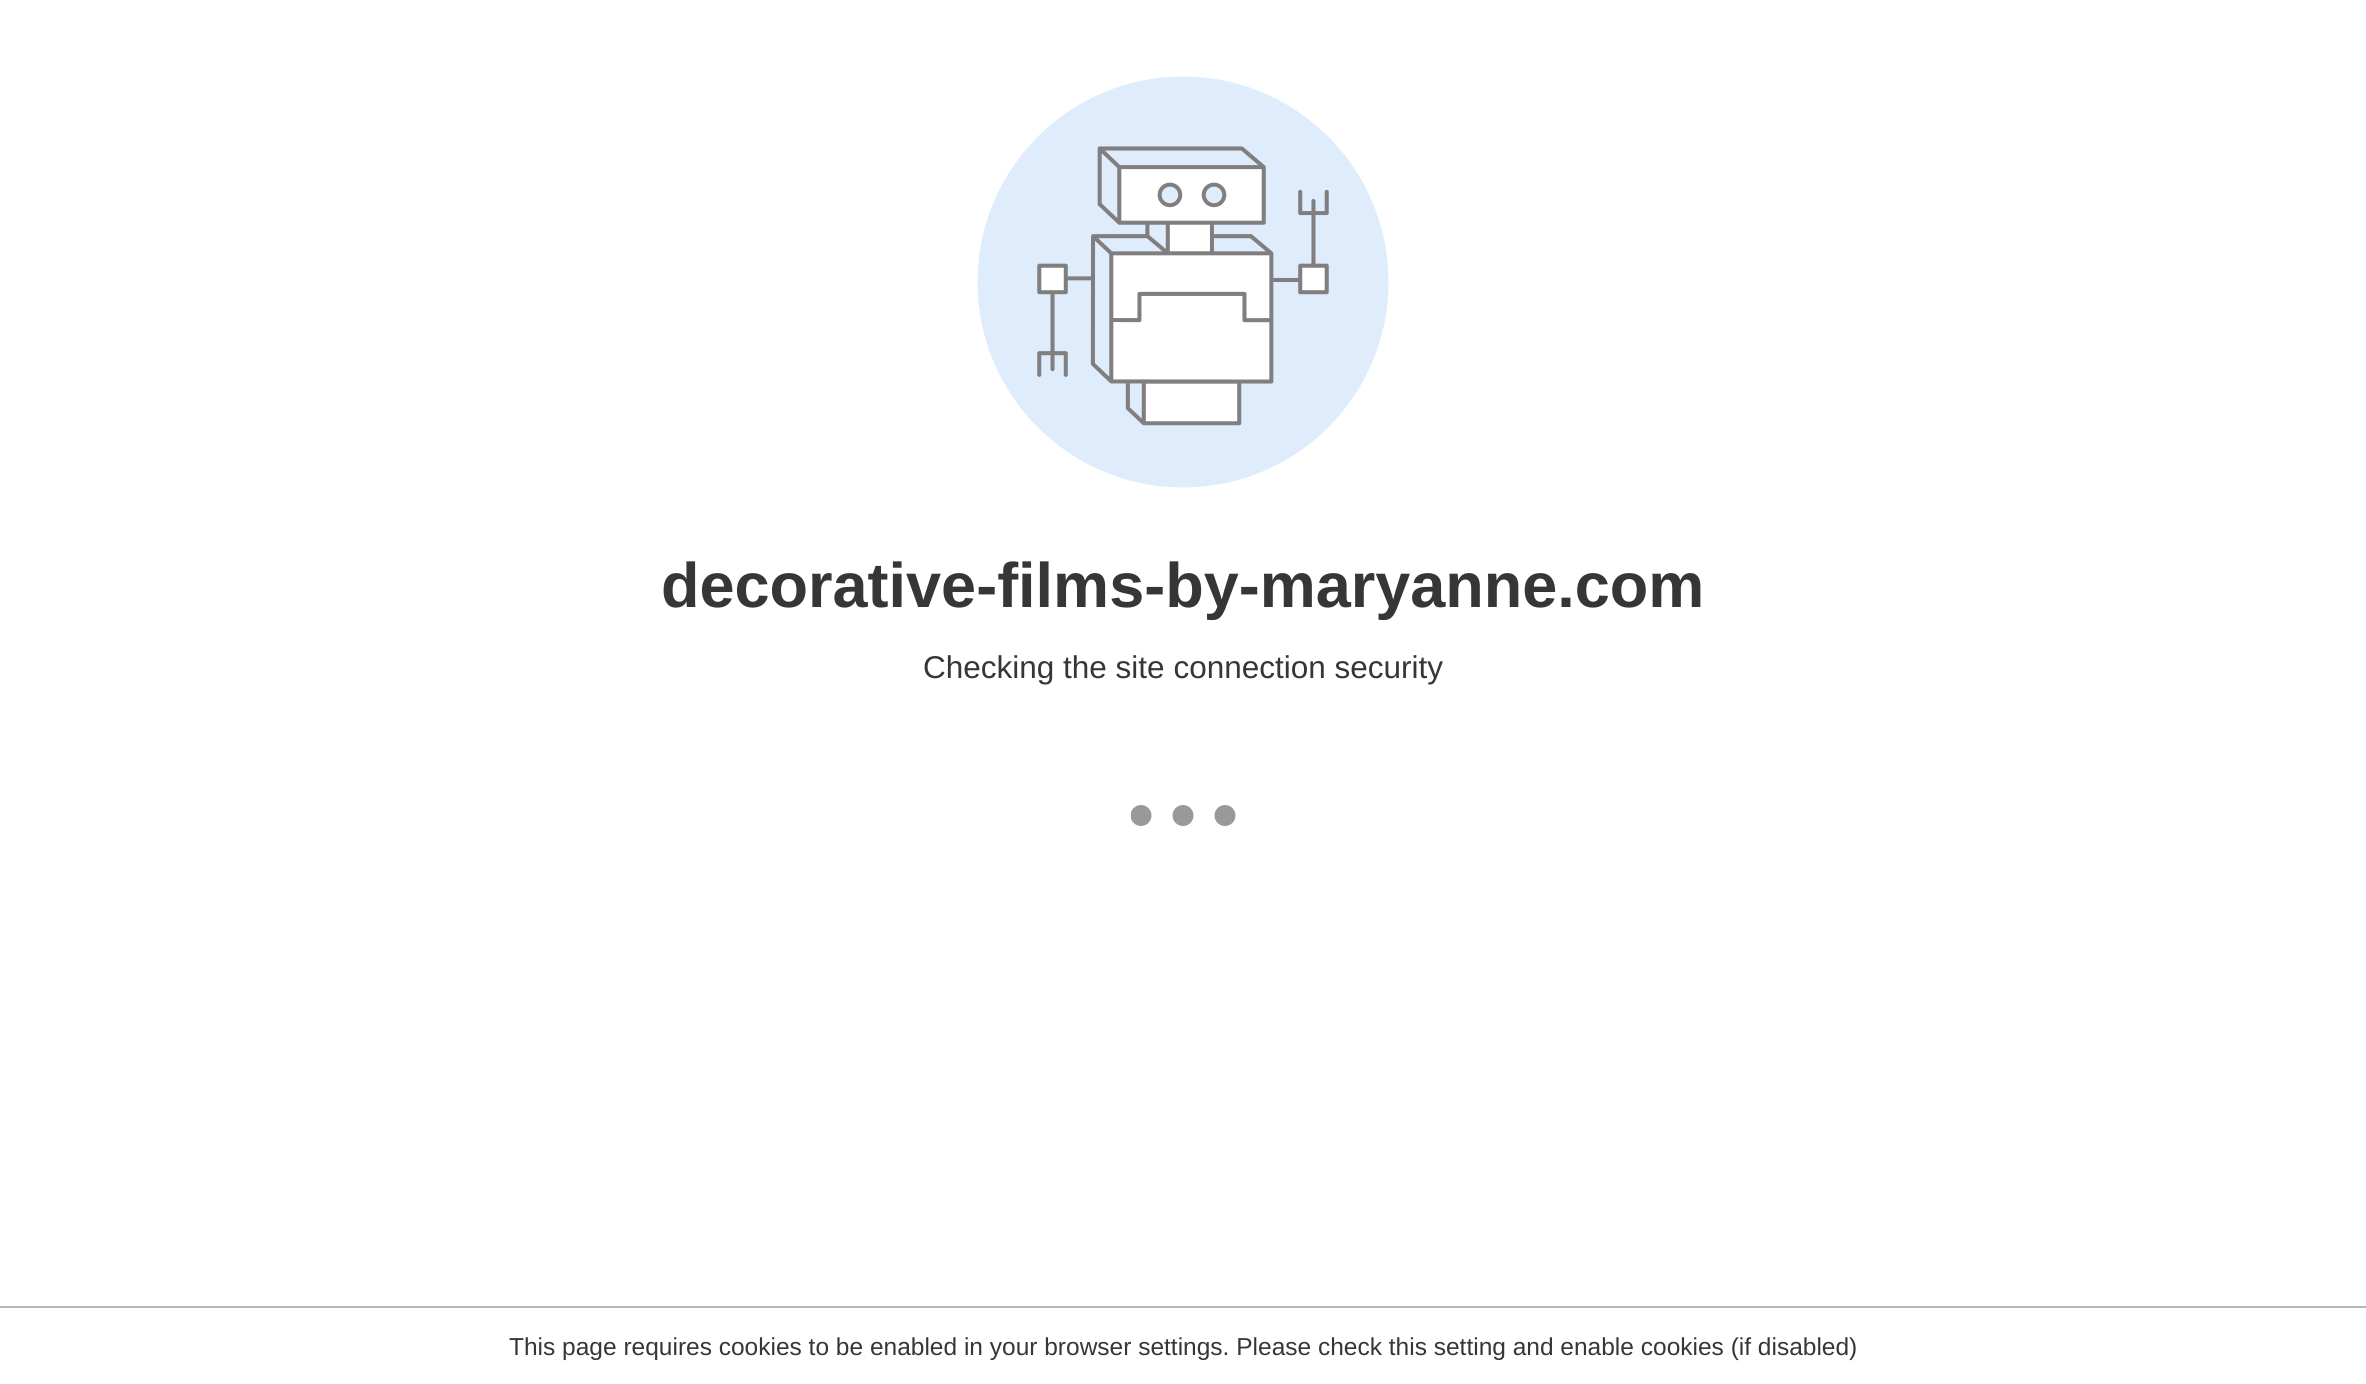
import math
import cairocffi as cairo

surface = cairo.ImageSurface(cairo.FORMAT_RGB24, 2366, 1384)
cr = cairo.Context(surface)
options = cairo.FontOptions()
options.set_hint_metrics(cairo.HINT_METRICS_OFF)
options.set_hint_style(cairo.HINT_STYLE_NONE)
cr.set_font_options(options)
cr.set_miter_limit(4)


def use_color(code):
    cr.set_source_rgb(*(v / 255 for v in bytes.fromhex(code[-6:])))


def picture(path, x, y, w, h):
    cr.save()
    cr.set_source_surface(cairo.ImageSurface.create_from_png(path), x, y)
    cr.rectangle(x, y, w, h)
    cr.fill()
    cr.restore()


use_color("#ffffff")
cr.paint()
picture("img1.png", 977, 76, 412, 412)
cr.select_font_face("Liberation Sans", cairo.FONT_SLANT_NORMAL, cairo.FONT_WEIGHT_BOLD)
cr.set_font_size(63)
use_color("#363636")
cr.move_to(661, 607)
cr.show_text("decorative-films-by-maryanne.com")
cr.select_font_face("Liberation Sans")
cr.set_font_size(31.5)
cr.move_to(923, 678)
cr.show_text("Checking the site connection security")
cr.save()
cr.rectangle(1131, 728, 175, 175)
cr.clip()
use_color("#999999")
cr.arc(1141, 815.5, 10.5, 0, 2 * math.pi)
cr.fill()
cr.restore()
use_color("#999999")
cr.arc(1183, 815.5, 10.5, 0, 2 * math.pi)
cr.fill()
cr.arc(1225, 815.5, 10.5, 0, 2 * math.pi)
cr.fill()
use_color("#b7b7b7")
cr.rectangle(0, 1306, 2366, 2)
cr.fill()
cr.set_font_size(24.5)
use_color("#363636")
cr.move_to(509, 1355)
cr.show_text("This page requires cookies to be enabled in your browser settings. Please check this setting and enable cookies (if disabled)")
surface.write_to_png("result.png")
